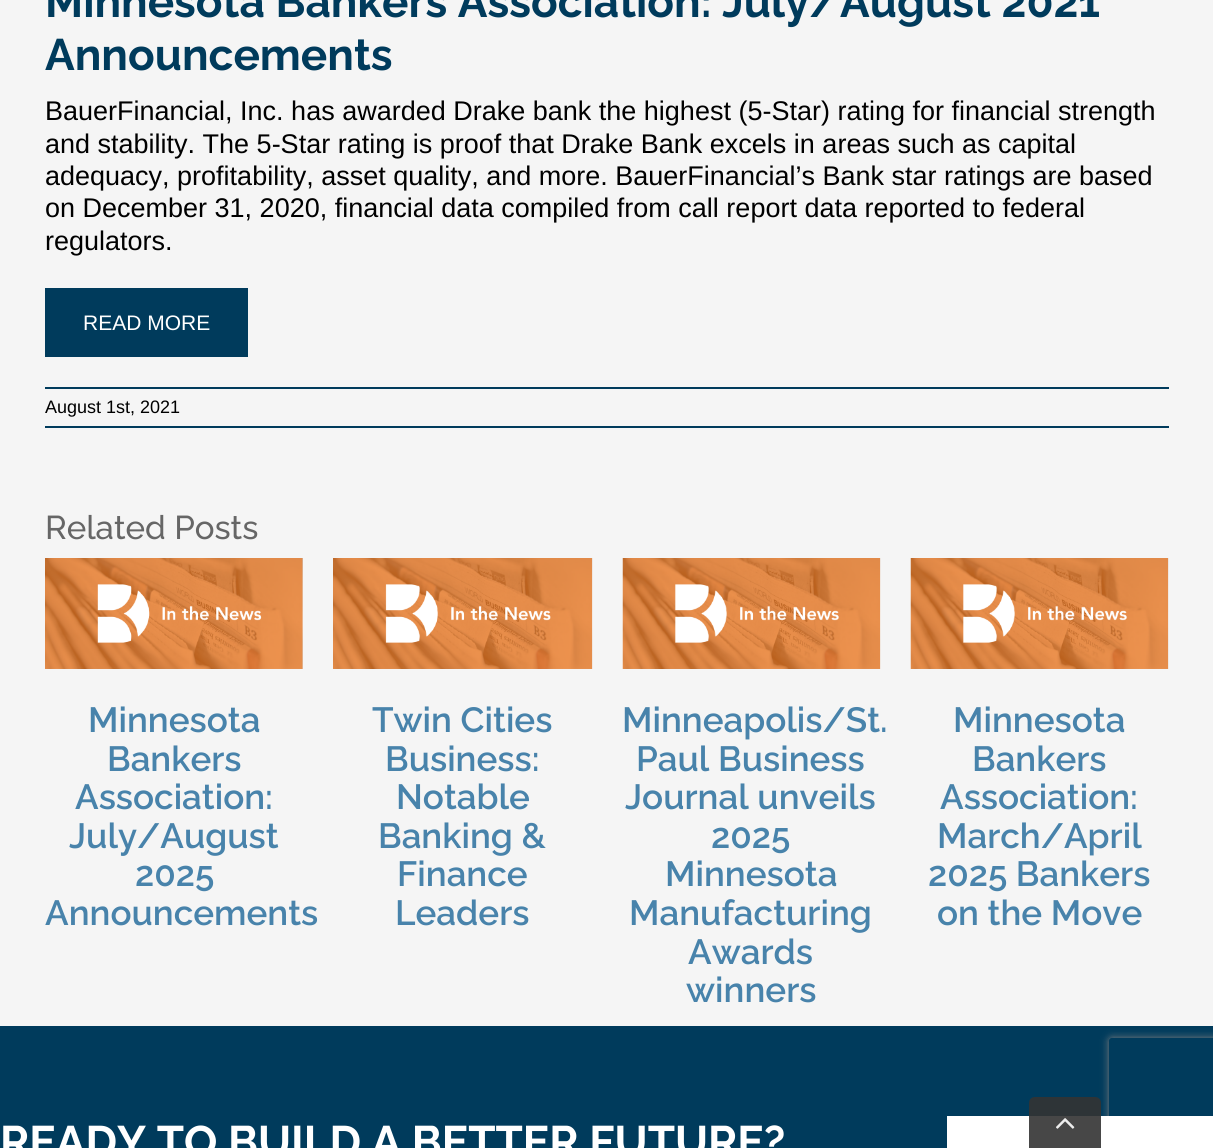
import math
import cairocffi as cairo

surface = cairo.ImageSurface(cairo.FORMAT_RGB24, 1213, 1148)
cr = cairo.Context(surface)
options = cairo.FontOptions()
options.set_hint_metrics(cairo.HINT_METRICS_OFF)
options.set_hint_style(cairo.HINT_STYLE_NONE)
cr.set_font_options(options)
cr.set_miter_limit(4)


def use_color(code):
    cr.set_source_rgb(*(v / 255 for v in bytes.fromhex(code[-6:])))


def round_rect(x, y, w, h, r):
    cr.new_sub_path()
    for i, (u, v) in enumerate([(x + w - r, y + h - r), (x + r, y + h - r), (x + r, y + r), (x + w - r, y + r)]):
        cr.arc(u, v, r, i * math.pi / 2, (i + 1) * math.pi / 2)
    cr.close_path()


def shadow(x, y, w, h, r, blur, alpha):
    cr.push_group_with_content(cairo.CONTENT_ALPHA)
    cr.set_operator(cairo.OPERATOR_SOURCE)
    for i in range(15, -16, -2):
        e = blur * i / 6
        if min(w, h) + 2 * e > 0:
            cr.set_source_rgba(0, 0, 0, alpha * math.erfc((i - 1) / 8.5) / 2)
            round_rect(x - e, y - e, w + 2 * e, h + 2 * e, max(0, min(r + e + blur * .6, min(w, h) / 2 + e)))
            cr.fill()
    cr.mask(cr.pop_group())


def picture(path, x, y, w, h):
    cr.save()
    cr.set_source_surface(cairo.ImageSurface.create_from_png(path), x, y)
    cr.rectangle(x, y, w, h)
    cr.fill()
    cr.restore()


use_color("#f5f5f5")
cr.paint()
cr.select_font_face("Raleway", cairo.FONT_SLANT_NORMAL, cairo.FONT_WEIGHT_BOLD)
cr.set_font_size(44.1)
use_color("#003b5c")
cr.move_to(45, 17)
cr.show_text("Minnesota Bankers Association: July/August 2021")
cr.move_to(45, 70)
cr.show_text("Announcements")
cr.select_font_face("Liberation Sans")
cr.set_font_size(27)
use_color("#000000")
cr.move_to(45, 120)
cr.show_text("BauerFinancial, Inc. has awarded Drake bank the highest (5-Star) rating for financial strength")
cr.move_to(45, 153)
cr.show_text("and stability. The 5-Star rating is proof that Drake Bank excels in areas such as capital")
cr.move_to(45, 185)
cr.show_text("adequacy, profitability, asset quality, and more. BauerFinancial’s Bank star ratings are based")
cr.move_to(45, 217)
cr.show_text("on December 31, 2020, financial data compiled from call report data reported to federal")
cr.move_to(45, 250)
cr.show_text("regulators.")
use_color("#003b5c")
cr.rectangle(45, 288, 203, 69)
cr.fill()
cr.set_font_size(21)
use_color("#ffffff")
cr.move_to(83, 330)
cr.show_text("READ MORE")
use_color("#003b5c")
cr.rectangle(45, 387, 1124, 2)
cr.fill()
cr.rectangle(45, 426, 1124, 2)
cr.fill()
cr.set_font_size(18)
use_color("#000000")
cr.move_to(45, 413)
cr.show_text("August 1st, 2021")
cr.select_font_face("Raleway Medium")
cr.set_font_size(33)
use_color("#666666")
cr.move_to(45, 539)
cr.show_text("Related Posts")
picture("img1.png", 45, 558, 258, 111)
cr.select_font_face("Raleway SemiBold")
cr.set_font_size(35)
use_color("#4883ab")
cr.move_to(88, 732)
cr.show_text("Minnesota")
cr.move_to(107, 771)
cr.show_text("Bankers")
cr.move_to(75, 809)
cr.show_text("Association:")
cr.move_to(69, 848)
cr.show_text("July/August")
cr.move_to(135, 886)
cr.show_text("2025")
cr.move_to(45, 925)
cr.show_text("Announcements")
picture("img2.png", 333, 558, 260, 111)
cr.move_to(372, 732)
cr.show_text("Twin Cities")
cr.move_to(385, 771)
cr.show_text("Business:")
cr.move_to(396, 809)
cr.show_text("Notable")
cr.move_to(378, 848)
cr.show_text("Banking &")
cr.move_to(397, 886)
cr.show_text("Finance")
cr.move_to(395, 925)
cr.show_text("Leaders")
picture("img3.png", 622, 558, 259, 111)
cr.move_to(622, 732)
cr.show_text("Minneapolis/St.")
cr.move_to(636, 771)
cr.show_text("Paul Business")
cr.move_to(625, 809)
cr.show_text("Journal unveils")
cr.move_to(711, 848)
cr.show_text("2025")
cr.move_to(665, 886)
cr.show_text("Minnesota")
cr.move_to(629, 925)
cr.show_text("Manufacturing")
cr.move_to(688, 964)
cr.show_text("Awards")
cr.move_to(686, 1002)
cr.show_text("winners")
picture("img3.png", 910, 558, 259, 111)
cr.move_to(953, 732)
cr.show_text("Minnesota")
cr.move_to(972, 771)
cr.show_text("Bankers")
cr.move_to(940, 809)
cr.show_text("Association:")
cr.move_to(937, 848)
cr.show_text("March/April")
cr.move_to(928, 886)
cr.show_text("2025 Bankers")
cr.move_to(937, 925)
cr.show_text("on the Move")
use_color("#003b5c")
cr.rectangle(0, 1026, 1213, 122)
cr.fill()
cr.select_font_face("Raleway", cairo.FONT_SLANT_NORMAL, cairo.FONT_WEIGHT_BOLD)
cr.set_font_size(44.1)
use_color("#ffffff")
cr.move_to(0, 1157)
cr.show_text("READY TO BUILD A BETTER FUTURE?")
cr.save()
cr.set_fill_rule(cairo.FILL_RULE_EVEN_ODD)
cr.new_path()
cr.move_to(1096, 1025)
cr.line_to(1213, 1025)
cr.line_to(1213, 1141)
cr.line_to(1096, 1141)
cr.close_path()
cr.move_to(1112, 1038)
cr.line_to(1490, 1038)
cr.curve_to(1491.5, 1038, 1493, 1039.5, 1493, 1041)
cr.line_to(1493, 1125)
cr.curve_to(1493, 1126.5, 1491.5, 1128, 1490, 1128)
cr.line_to(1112, 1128)
cr.curve_to(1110.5, 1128, 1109, 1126.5, 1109, 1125)
cr.line_to(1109, 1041)
cr.curve_to(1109, 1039.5, 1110.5, 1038, 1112, 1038)
cr.close_path()
cr.clip()
use_color("#808080")
shadow(1109, 1038, 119, 90, 3, 4, 1)
cr.restore()
cr.rectangle(947, 1116, 266, 32)
cr.fill()
cr.set_source_rgba(0.2, 0.2, 0.2, 0.9)
cr.new_path()
cr.move_to(1035, 1097)
cr.line_to(1095, 1097)
cr.curve_to(1098.5, 1097, 1101, 1099.5, 1101, 1103)
cr.line_to(1101, 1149)
cr.line_to(1029, 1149)
cr.line_to(1029, 1103)
cr.curve_to(1029, 1099.5, 1031.5, 1097, 1035, 1097)
cr.close_path()
cr.fill()
picture("img4.png", 1056, 1118, 19, 11)
surface.write_to_png("result.png")
